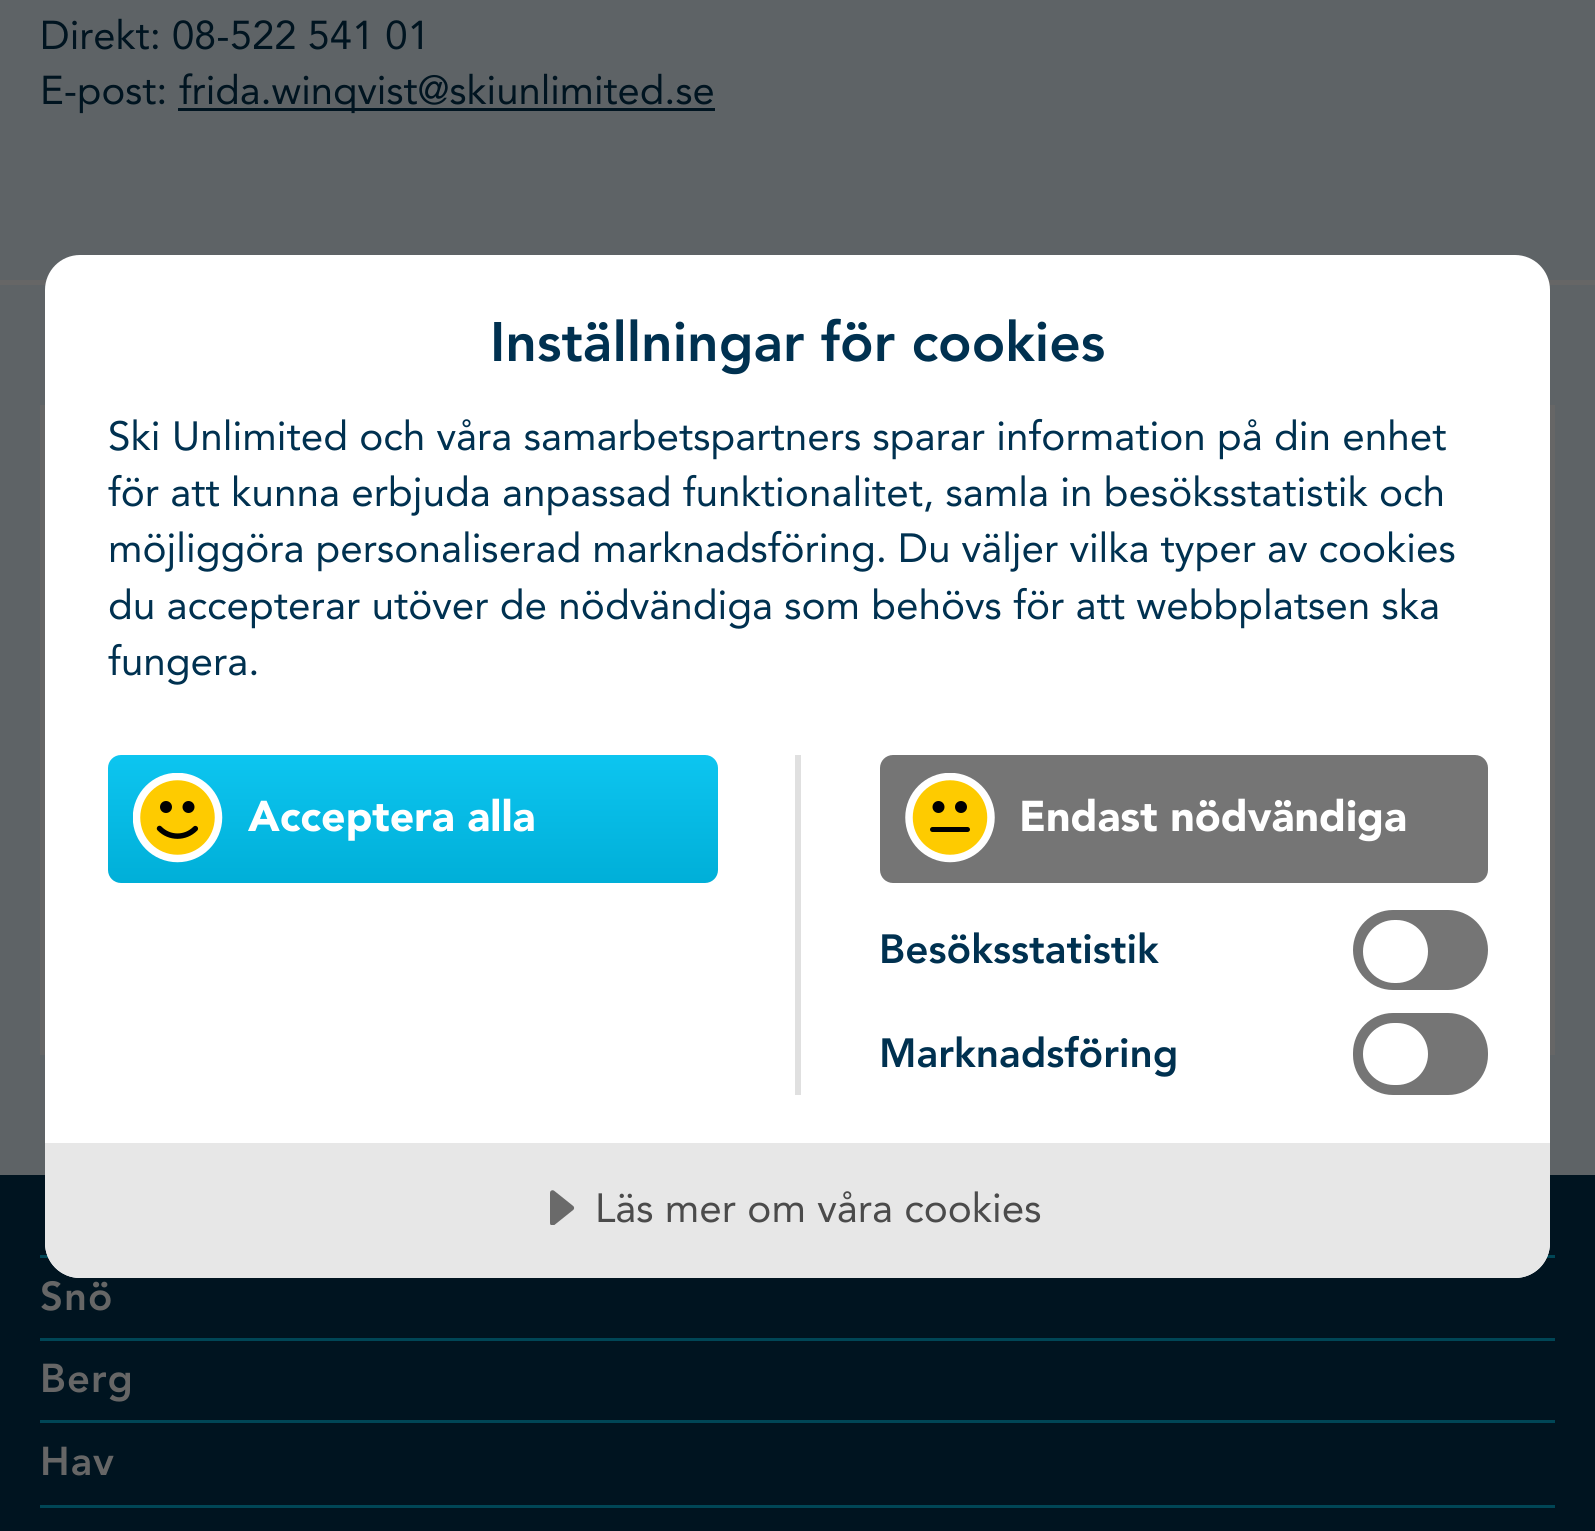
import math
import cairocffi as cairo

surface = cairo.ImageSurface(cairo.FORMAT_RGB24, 1595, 1531)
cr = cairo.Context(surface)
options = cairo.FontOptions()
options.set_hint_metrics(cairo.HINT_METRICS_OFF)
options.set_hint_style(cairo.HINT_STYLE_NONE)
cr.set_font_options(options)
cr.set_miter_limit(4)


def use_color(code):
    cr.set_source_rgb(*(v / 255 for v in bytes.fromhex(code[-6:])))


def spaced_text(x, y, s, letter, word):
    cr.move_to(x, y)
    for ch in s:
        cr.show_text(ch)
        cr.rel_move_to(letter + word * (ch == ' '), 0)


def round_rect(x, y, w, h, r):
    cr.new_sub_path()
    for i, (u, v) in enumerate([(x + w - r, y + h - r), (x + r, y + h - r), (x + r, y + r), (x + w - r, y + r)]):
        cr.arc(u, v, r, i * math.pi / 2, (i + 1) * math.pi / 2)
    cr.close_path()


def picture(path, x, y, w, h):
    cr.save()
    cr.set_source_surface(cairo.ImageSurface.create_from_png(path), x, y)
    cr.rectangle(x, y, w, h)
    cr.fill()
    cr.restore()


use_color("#001420")
cr.paint()
use_color("#5e6366")
cr.rectangle(0, 0, 1595, 280)
cr.fill()
use_color("#666666")
cr.rectangle(0, 280, 1595, 5)
cr.fill()
cr.select_font_face("Avenir")
cr.set_font_size(40)
use_color("#001420")
cr.move_to(40, 49)
cr.show_text("Direkt: 08-522 541 01")
cr.move_to(40, 104)
cr.show_text("E-post:")
cr.rectangle(178, 108, 537, 3)
cr.fill()
cr.move_to(179, 104)
cr.show_text("frida.winqvist@skiunlimited.se")
use_color("#5e6366")
cr.rectangle(0, 285, 1595, 890)
cr.fill()
use_color("#666666")
cr.rectangle(40, 405, 1515, 650)
cr.fill()
use_color("#004656")
cr.rectangle(40, 1255, 1515, 3)
cr.fill()
use_color("#ffffff")
round_rect(45, 255, 1505, 1023, 35)
cr.fill()
cr.select_font_face("Avenir Black")
cr.set_font_size(55.1)
use_color("#003150")
cr.move_to(490, 361)
cr.show_text("Inställningar för cookies")
cr.select_font_face("Avenir")
cr.set_font_size(40.5)
cr.move_to(108, 450)
cr.show_text("Ski Unlimited och våra samarbetspartners sparar information på din enhet")
cr.move_to(108, 506)
cr.show_text("för att kunna erbjuda anpassad funktionalitet, samla in besöksstatistik och")
spaced_text(108, 562, "möjliggöra personaliserad marknadsföring. Du väljer vilka typer av cookies", 0, -0.25)
cr.move_to(108, 619)
cr.show_text("du accepterar utöver de nödvändiga som behövs för att webbplatsen ska")
cr.move_to(108, 675)
cr.show_text("fungera.")
use_color("#e0e0e0")
cr.rectangle(795, 755, 6, 340)
cr.fill()
gradient = cairo.LinearGradient(413, 755, 413, 883)
gradient.add_color_stop_rgba(0, 0.051, 0.773, 0.941, 1)
gradient.add_color_stop_rgba(1, 0, 0.686, 0.847, 1)
cr.set_source(gradient)
round_rect(108, 755, 610, 128, 13)
cr.fill()
picture("img1.png", 133, 773, 90, 90)
cr.select_font_face("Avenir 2 Black")
cr.set_font_size(42.75)
use_color("#ffffff")
cr.move_to(248, 831)
cr.show_text("Acceptera alla")
use_color("#757575")
round_rect(880, 755, 608, 128, 13)
cr.fill()
use_color("#fecb00")
cr.arc(950, 817.5, 41, 0, 2 * math.pi)
cr.fill()
cr.save()
cr.rectangle(905, 773, 90, 90)
cr.clip()
cr.arc(950, 817.5, 41, 0, 2 * math.pi)
use_color("#ffffff")
cr.set_line_width(7.5)
cr.stroke()
cr.restore()
use_color("#000000")
cr.arc(938.5, 807, 6, 0, 2 * math.pi)
cr.fill()
cr.arc(961, 807, 6, 0, 2 * math.pi)
cr.fill()
round_rect(930, 827, 40, 5, 2.5)
cr.fill()
use_color("#ffffff")
cr.move_to(1019, 831)
cr.show_text("Endast nödvändiga")
cr.select_font_face("Avenir Black")
cr.set_font_size(40.5)
use_color("#003150")
cr.move_to(879, 963)
cr.show_text("Besöksstatistik")
use_color("#757575")
round_rect(1353, 910, 135, 80, 40)
cr.fill()
use_color("#ffffff")
round_rect(1363, 920, 65, 63, 31.5)
cr.fill()
use_color("#003150")
cr.move_to(879, 1067)
cr.show_text("Marknadsföring")
use_color("#757575")
round_rect(1353, 1013, 135, 82, 40)
cr.fill()
use_color("#ffffff")
round_rect(1363, 1023, 65, 62, 31)
cr.fill()
use_color("#e7e7e7")
cr.new_path()
cr.move_to(45, 1143)
cr.line_to(1550, 1143)
cr.line_to(1550, 1243)
cr.curve_to(1550, 1262.5, 1534.5, 1278, 1515, 1278)
cr.line_to(80, 1278)
cr.curve_to(60.5, 1278, 45, 1262.5, 45, 1243)
cr.close_path()
cr.fill()
picture("img2.png", 550, 1190, 25, 35)
cr.select_font_face("Avenir")
use_color("#4b4b4b")
cr.move_to(595, 1222)
cr.show_text("Läs mer om våra cookies")
use_color("#004656")
cr.rectangle(40, 1338, 1515, 3)
cr.fill()
cr.select_font_face("Avenir Black")
cr.set_font_size(40)
use_color("#666666")
spaced_text(40, 1310, "Snö", 1, 0)
use_color("#004656")
cr.rectangle(40, 1420, 1515, 3)
cr.fill()
use_color("#666666")
spaced_text(40, 1392, "Berg", 1, 0)
use_color("#004656")
cr.rectangle(40, 1505, 1515, 3)
cr.fill()
use_color("#666666")
spaced_text(40, 1475, "Hav", 1, 0)
surface.write_to_png("result.png")
